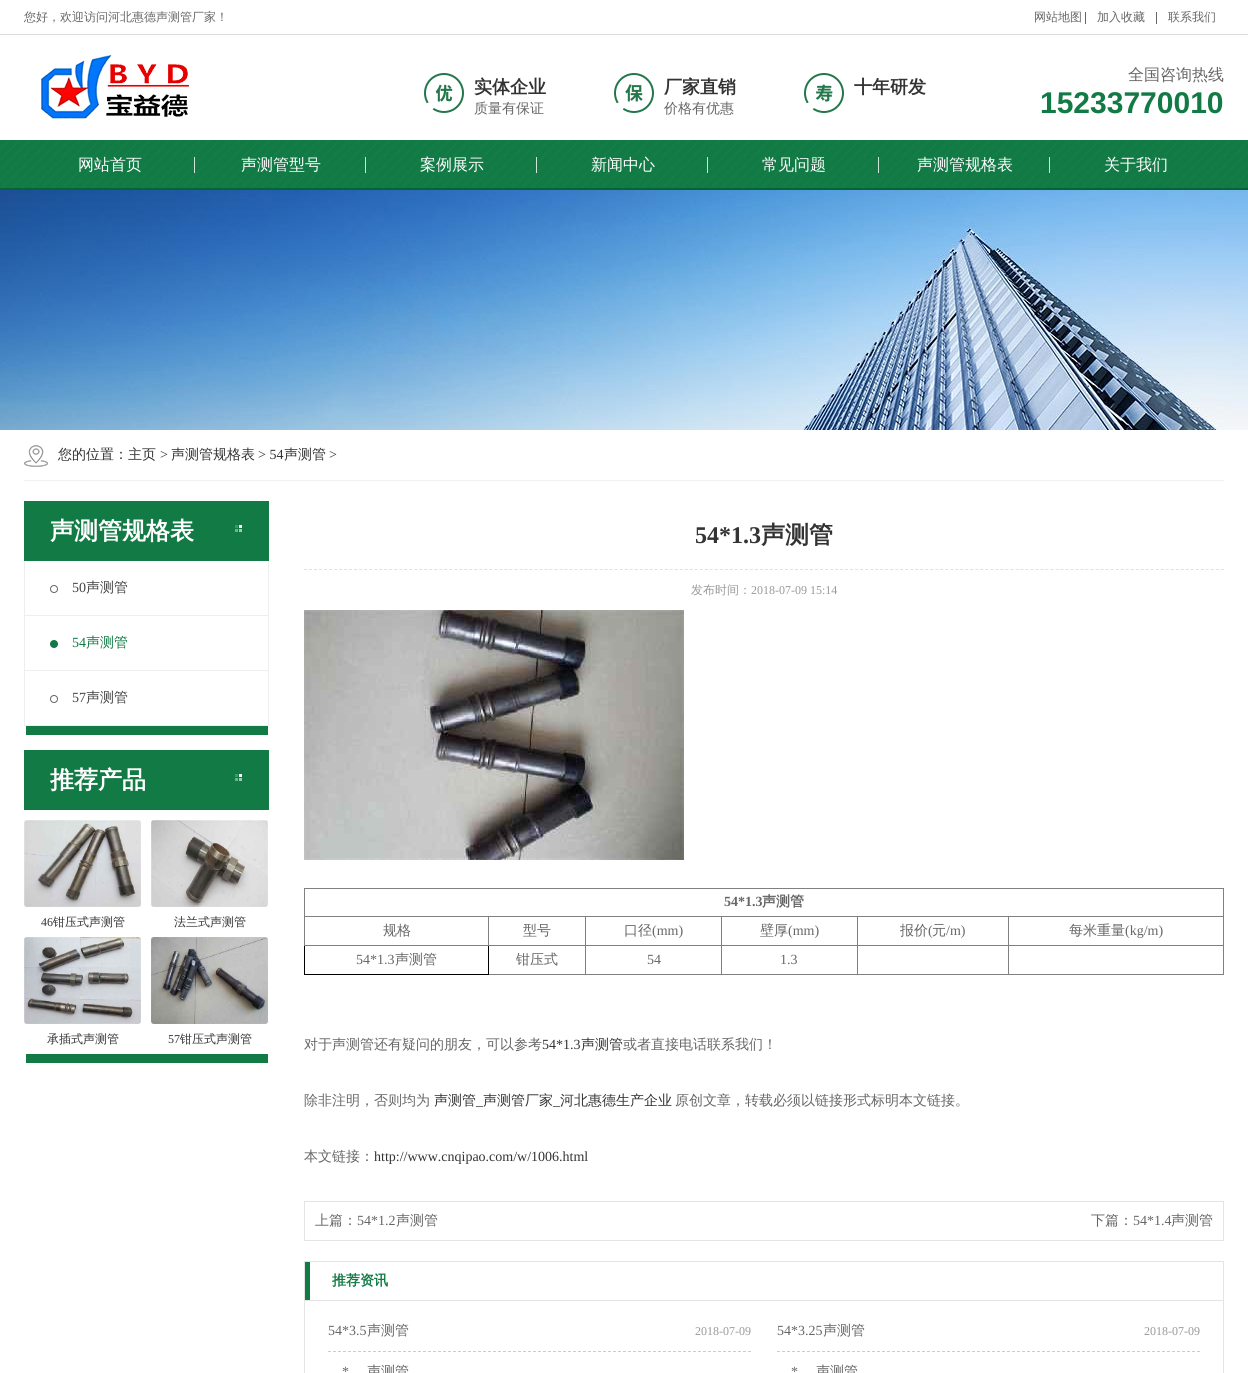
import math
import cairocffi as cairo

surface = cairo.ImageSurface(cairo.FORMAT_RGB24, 1248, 1373)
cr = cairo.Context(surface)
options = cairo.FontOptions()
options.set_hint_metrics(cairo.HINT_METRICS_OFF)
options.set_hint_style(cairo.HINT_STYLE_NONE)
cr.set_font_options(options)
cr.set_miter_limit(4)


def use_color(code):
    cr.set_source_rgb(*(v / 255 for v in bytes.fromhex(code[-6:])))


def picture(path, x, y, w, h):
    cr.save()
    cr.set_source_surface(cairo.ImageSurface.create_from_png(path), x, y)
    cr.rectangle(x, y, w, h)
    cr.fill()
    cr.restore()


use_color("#ffffff")
cr.paint()
use_color("#dddddd")
cr.rectangle(0, 34, 1248, 1)
cr.fill()
cr.select_font_face("WenQuanYi Zen Hei Medium")
cr.set_font_size(12)
use_color("#666666")
cr.move_to(24, 21)
cr.show_text("您好，欢迎访问河北惠德声测管厂家！")
cr.move_to(1034, 21)
cr.show_text("网站地图")
cr.rectangle(1085, 12, 1, 12)
cr.fill()
cr.move_to(1097, 21)
cr.show_text("加入收藏")
cr.rectangle(1156, 12, 1, 12)
cr.fill()
cr.move_to(1168, 21)
cr.show_text("联系我们")
picture("img1.png", 41, 55, 149, 64)
picture("img2.png", 424, 73, 40, 40)
cr.select_font_face("WenQuanYi Zen Hei", cairo.FONT_SLANT_NORMAL, cairo.FONT_WEIGHT_BOLD)
cr.set_font_size(18)
use_color("#333333")
cr.move_to(474, 93)
cr.show_text("实体企业")
cr.select_font_face("WenQuanYi Zen Hei Medium")
cr.set_font_size(14)
use_color("#666666")
cr.move_to(474, 113)
cr.show_text("质量有保证")
picture("img3.png", 614, 73, 40, 40)
cr.select_font_face("WenQuanYi Zen Hei", cairo.FONT_SLANT_NORMAL, cairo.FONT_WEIGHT_BOLD)
cr.set_font_size(18)
use_color("#333333")
cr.move_to(664, 93)
cr.show_text("厂家直销")
cr.select_font_face("WenQuanYi Zen Hei Medium")
cr.set_font_size(14)
use_color("#666666")
cr.move_to(664, 113)
cr.show_text("价格有优惠")
picture("img4.png", 804, 73, 40, 40)
cr.select_font_face("WenQuanYi Zen Hei", cairo.FONT_SLANT_NORMAL, cairo.FONT_WEIGHT_BOLD)
cr.set_font_size(18)
use_color("#333333")
cr.move_to(854, 93)
cr.show_text("十年研发")
cr.select_font_face("WenQuanYi Zen Hei Medium")
cr.set_font_size(16)
use_color("#666666")
cr.move_to(1128, 80)
cr.show_text("全国咨询热线")
cr.select_font_face("Liberation Sans", cairo.FONT_SLANT_NORMAL, cairo.FONT_WEIGHT_BOLD)
cr.set_font_size(30)
use_color("#127a44")
cr.move_to(1040, 113)
cr.show_text("15233770010")
picture("img5.png", 0, 140, 1248, 50)
cr.set_source_rgba(1, 1, 1, 0.8)
cr.rectangle(194, 157, 1, 16)
cr.fill()
cr.select_font_face("WenQuanYi Zen Hei Medium")
cr.set_font_size(16)
use_color("#ffffff")
cr.move_to(78, 170)
cr.show_text("网站首页")
cr.set_source_rgba(1, 1, 1, 0.8)
cr.rectangle(365, 157, 1, 16)
cr.fill()
use_color("#ffffff")
cr.move_to(241, 170)
cr.show_text("声测管型号")
cr.set_source_rgba(1, 1, 1, 0.8)
cr.rectangle(536, 157, 1, 16)
cr.fill()
use_color("#ffffff")
cr.move_to(420, 170)
cr.show_text("案例展示")
cr.set_source_rgba(1, 1, 1, 0.8)
cr.rectangle(707, 157, 1, 16)
cr.fill()
use_color("#ffffff")
cr.move_to(591, 170)
cr.show_text("新闻中心")
cr.set_source_rgba(1, 1, 1, 0.8)
cr.rectangle(878, 157, 1, 16)
cr.fill()
use_color("#ffffff")
cr.move_to(762, 170)
cr.show_text("常见问题")
cr.set_source_rgba(1, 1, 1, 0.8)
cr.rectangle(1049, 157, 1, 16)
cr.fill()
use_color("#ffffff")
cr.move_to(917, 170)
cr.show_text("声测管规格表")
cr.move_to(1104, 170)
cr.show_text("关于我们")
picture("img6.png", 0, 190, 1248, 240)
use_color("#f1f1f1")
cr.rectangle(24, 480, 1200, 1)
cr.fill()
picture("img7.png", 24, 445, 24, 22)
cr.set_font_size(14)
use_color("#333333")
cr.move_to(58, 459)
cr.show_text("您的位置：主页")
cr.select_font_face("Liberation Serif")
cr.move_to(160, 459)
cr.show_text(">")
cr.select_font_face("WenQuanYi Zen Hei Medium")
cr.move_to(171, 459)
cr.show_text("声测管规格表")
cr.select_font_face("Liberation Serif")
cr.move_to(258, 459)
cr.show_text("> 54")
cr.select_font_face("WenQuanYi Zen Hei Medium")
cr.move_to(284, 459)
cr.show_text("声测管")
cr.select_font_face("Liberation Serif")
cr.move_to(329, 459)
cr.show_text(">")
use_color("#127a44")
cr.rectangle(26, 726, 242, 9)
cr.fill()
cr.rectangle(24, 501, 245, 60)
cr.fill()
cr.select_font_face("WenQuanYi Zen Hei", cairo.FONT_SLANT_NORMAL, cairo.FONT_WEIGHT_BOLD)
cr.set_font_size(24)
use_color("#ffffff")
cr.move_to(50, 539)
cr.show_text("声测管规格表")
picture("img8.png", 235, 525, 7, 7)
use_color("#eeeeee")
cr.rectangle(268, 561, 1, 165)
cr.fill()
cr.rectangle(24, 561, 1, 165)
cr.fill()
cr.rectangle(25, 615, 243, 1)
cr.fill()
picture("img9.png", 50, 585, 8, 8)
cr.select_font_face("Liberation Serif")
cr.set_font_size(14)
use_color("#444444")
cr.move_to(72, 592)
cr.show_text("50")
cr.select_font_face("WenQuanYi Zen Hei Medium")
cr.move_to(86, 592)
cr.show_text("声测管")
use_color("#eeeeee")
cr.rectangle(25, 670, 243, 1)
cr.fill()
picture("img10.png", 50, 640, 8, 8)
cr.select_font_face("Liberation Serif")
use_color("#127a44")
cr.move_to(72, 647)
cr.show_text("54")
cr.select_font_face("WenQuanYi Zen Hei Medium")
cr.move_to(86, 647)
cr.show_text("声测管")
use_color("#eeeeee")
cr.rectangle(25, 725, 243, 1)
cr.fill()
picture("img9.png", 50, 695, 8, 8)
cr.select_font_face("Liberation Serif")
use_color("#444444")
cr.move_to(72, 702)
cr.show_text("57")
cr.select_font_face("WenQuanYi Zen Hei Medium")
cr.move_to(86, 702)
cr.show_text("声测管")
use_color("#127a44")
cr.rectangle(26, 1054, 242, 9)
cr.fill()
cr.rectangle(24, 750, 245, 60)
cr.fill()
cr.select_font_face("WenQuanYi Zen Hei", cairo.FONT_SLANT_NORMAL, cairo.FONT_WEIGHT_BOLD)
cr.set_font_size(24)
use_color("#ffffff")
cr.move_to(50, 788)
cr.show_text("推荐产品")
picture("img8.png", 235, 774, 7, 7)
picture("img11.png", 24, 820, 117, 87)
cr.select_font_face("Liberation Serif")
cr.set_font_size(12)
use_color("#333333")
cr.move_to(41, 926)
cr.show_text("46")
cr.select_font_face("WenQuanYi Zen Hei Medium")
cr.move_to(53, 926)
cr.show_text("钳压式声测管")
picture("img12.png", 151, 820, 117, 87)
cr.move_to(174, 926)
cr.show_text("法兰式声测管")
picture("img13.png", 24, 937, 117, 87)
cr.move_to(47, 1043)
cr.show_text("承插式声测管")
picture("img14.png", 151, 937, 117, 87)
cr.select_font_face("Liberation Serif")
cr.move_to(168, 1043)
cr.show_text("57")
cr.select_font_face("WenQuanYi Zen Hei Medium")
cr.move_to(180, 1043)
cr.show_text("钳压式声测管")
cr.new_path()
cr.move_to(304, 569.5)
cr.line_to(1224, 569.5)
use_color("#e1e1e1")
cr.set_line_width(1)
cr.set_dash([3, 2.01])
cr.stroke()
cr.select_font_face("Liberation Serif", cairo.FONT_SLANT_NORMAL, cairo.FONT_WEIGHT_BOLD)
cr.set_font_size(24)
use_color("#333333")
cr.move_to(695, 543)
cr.show_text("54*1.3")
cr.select_font_face("WenQuanYi Zen Hei", cairo.FONT_SLANT_NORMAL, cairo.FONT_WEIGHT_BOLD)
cr.move_to(761, 543)
cr.show_text("声测管")
cr.select_font_face("WenQuanYi Zen Hei Medium")
cr.set_font_size(12)
use_color("#999999")
cr.move_to(691, 594)
cr.show_text("发布时间：")
cr.select_font_face("Liberation Serif")
cr.move_to(751, 594)
cr.show_text("2018-07-09 15:14")
picture("img15.png", 304, 610, 380, 250)
use_color("#808080")
cr.rectangle(304, 888, 920, 1)
cr.fill()
cr.rectangle(1223, 888, 1, 87)
cr.fill()
cr.rectangle(489, 974, 735, 1)
cr.fill()
cr.rectangle(304, 888, 1, 57)
cr.fill()
cr.select_font_face("Liberation Serif", cairo.FONT_SLANT_NORMAL, cairo.FONT_WEIGHT_BOLD)
cr.set_font_size(14)
use_color("#666666")
cr.move_to(724, 906)
cr.show_text("54*1.3")
cr.select_font_face("WenQuanYi Zen Hei", cairo.FONT_SLANT_NORMAL, cairo.FONT_WEIGHT_BOLD)
cr.move_to(762, 906)
cr.show_text("声测管")
use_color("#808080")
cr.rectangle(1008, 916, 216, 1)
cr.fill()
cr.rectangle(1008, 945, 216, 1)
cr.fill()
cr.rectangle(1008, 945, 1, 30)
cr.fill()
cr.rectangle(857, 945, 152, 1)
cr.fill()
cr.rectangle(1008, 916, 1, 30)
cr.fill()
cr.rectangle(857, 916, 152, 1)
cr.fill()
cr.rectangle(857, 945, 1, 30)
cr.fill()
cr.rectangle(721, 945, 137, 1)
cr.fill()
cr.rectangle(857, 916, 1, 30)
cr.fill()
cr.rectangle(721, 916, 137, 1)
cr.fill()
cr.rectangle(721, 945, 1, 30)
cr.fill()
cr.rectangle(585, 945, 137, 1)
cr.fill()
cr.rectangle(721, 916, 1, 30)
cr.fill()
cr.rectangle(585, 916, 137, 1)
cr.fill()
cr.rectangle(585, 945, 1, 30)
cr.fill()
cr.rectangle(585, 916, 1, 30)
cr.fill()
cr.rectangle(488, 916, 98, 1)
cr.fill()
use_color("#000000")
cr.rectangle(488, 945, 1, 30)
cr.fill()
use_color("#808080")
cr.rectangle(488, 945, 98, 1)
cr.fill()
cr.rectangle(488, 916, 1, 30)
cr.fill()
cr.rectangle(304, 916, 185, 1)
cr.fill()
use_color("#000000")
cr.rectangle(304, 974, 185, 1)
cr.fill()
cr.rectangle(304, 945, 1, 30)
cr.fill()
use_color("#808080")
cr.rectangle(304, 945, 185, 1)
cr.fill()
cr.select_font_face("WenQuanYi Zen Hei Medium")
use_color("#666666")
cr.move_to(383, 935)
cr.show_text("规格")
cr.move_to(523, 935)
cr.show_text("型号")
cr.move_to(624, 935)
cr.show_text("口径")
cr.select_font_face("Liberation Serif")
cr.move_to(652, 935)
cr.show_text("(mm)")
cr.select_font_face("WenQuanYi Zen Hei Medium")
cr.move_to(760, 935)
cr.show_text("壁厚")
cr.select_font_face("Liberation Serif")
cr.move_to(788, 935)
cr.show_text("(mm)")
cr.select_font_face("WenQuanYi Zen Hei Medium")
cr.move_to(900, 935)
cr.show_text("报价")
cr.select_font_face("Liberation Serif")
cr.move_to(928, 935)
cr.show_text("(")
cr.select_font_face("WenQuanYi Zen Hei Medium")
cr.move_to(932, 935)
cr.show_text("元")
cr.select_font_face("Liberation Serif")
cr.move_to(946, 935)
cr.show_text("/m)")
cr.select_font_face("WenQuanYi Zen Hei Medium")
cr.move_to(1069, 935)
cr.show_text("每米重量")
cr.select_font_face("Liberation Serif")
cr.move_to(1125, 935)
cr.show_text("(kg/m)")
cr.move_to(356, 964)
cr.show_text("54*1.3")
cr.select_font_face("WenQuanYi Zen Hei Medium")
cr.move_to(395, 964)
cr.show_text("声测管")
cr.move_to(516, 964)
cr.show_text("钳压式")
cr.select_font_face("Liberation Serif")
cr.move_to(647, 964)
cr.show_text("54")
cr.move_to(780, 964)
cr.show_text("1.3")
cr.select_font_face("WenQuanYi Zen Hei Medium")
cr.move_to(304, 1049)
cr.show_text("对于声测管还有疑问的朋友，可以参考")
cr.select_font_face("Liberation Serif")
use_color("#333333")
cr.move_to(542, 1049)
cr.show_text("54*1.3")
cr.select_font_face("WenQuanYi Zen Hei Medium")
cr.move_to(581, 1049)
cr.show_text("声测管")
use_color("#666666")
cr.move_to(623, 1049)
cr.show_text("或者直接电话联系我们！")
cr.move_to(304, 1105)
cr.show_text("除非注明，否则均为")
use_color("#333333")
cr.move_to(434, 1105)
cr.show_text("声测管")
cr.select_font_face("Liberation Serif")
cr.move_to(476, 1105)
cr.show_text("_")
cr.select_font_face("WenQuanYi Zen Hei Medium")
cr.move_to(483, 1105)
cr.show_text("声测管厂家")
cr.select_font_face("Liberation Serif")
cr.move_to(553, 1105)
cr.show_text("_")
cr.select_font_face("WenQuanYi Zen Hei Medium")
cr.move_to(560, 1105)
cr.show_text("河北惠德生产企业")
use_color("#666666")
cr.move_to(675, 1105)
cr.show_text("原创文章，转载必须以链接形式标明本文链接。")
cr.move_to(304, 1161)
cr.show_text("本文链接：")
cr.select_font_face("Liberation Serif")
use_color("#333333")
cr.move_to(374, 1161)
cr.show_text("http://www.cnqipao.com/w/1006.html")
cr.rectangle(304.5, 1201.5, 919, 39)
use_color("#e4e4e4")
cr.set_dash([])
cr.stroke()
cr.select_font_face("WenQuanYi Zen Hei Medium")
use_color("#666666")
cr.move_to(315, 1225)
cr.show_text("上篇：")
cr.select_font_face("Liberation Serif")
cr.move_to(357, 1225)
cr.show_text("54*1.2")
cr.select_font_face("WenQuanYi Zen Hei Medium")
cr.move_to(396, 1225)
cr.show_text("声测管")
cr.move_to(1091, 1225)
cr.show_text("下篇：")
cr.select_font_face("Liberation Serif")
cr.move_to(1133, 1225)
cr.show_text("54*1.4")
cr.select_font_face("WenQuanYi Zen Hei Medium")
cr.move_to(1171, 1225)
cr.show_text("声测管")
cr.rectangle(304.5, 1261.5, 919, 39)
use_color("#e4e4e4")
cr.stroke()
use_color("#127a44")
cr.rectangle(305, 1262, 5, 38)
cr.fill()
cr.select_font_face("WenQuanYi Zen Hei", cairo.FONT_SLANT_NORMAL, cairo.FONT_WEIGHT_BOLD)
cr.move_to(332, 1285)
cr.show_text("推荐资讯")
use_color("#e4e4e4")
cr.rectangle(1223, 1301, 1, 72)
cr.fill()
cr.rectangle(304, 1301, 1, 72)
cr.fill()
cr.select_font_face("Liberation Serif")
use_color("#666666")
cr.move_to(328, 1335)
cr.show_text("54*3.5")
cr.select_font_face("WenQuanYi Zen Hei Medium")
cr.move_to(367, 1335)
cr.show_text("声测管")
cr.select_font_face("Liberation Serif")
cr.set_font_size(12)
use_color("#999999")
cr.move_to(695, 1335)
cr.show_text("2018-07-09")
cr.set_font_size(14)
use_color("#666666")
cr.move_to(777, 1335)
cr.show_text("54*3.25")
cr.select_font_face("WenQuanYi Zen Hei Medium")
cr.move_to(823, 1335)
cr.show_text("声测管")
cr.select_font_face("Liberation Serif")
cr.set_font_size(12)
use_color("#999999")
cr.move_to(1144, 1335)
cr.show_text("2018-07-09")
cr.new_path()
cr.move_to(328, 1351.5)
cr.line_to(751, 1351.5)
use_color("#cccccc")
cr.set_dash([3, 2])
cr.stroke()
cr.set_font_size(14)
use_color("#666666")
cr.move_to(342, 1376)
cr.show_text("*")
cr.select_font_face("WenQuanYi Zen Hei Medium")
cr.move_to(367, 1376)
cr.show_text("声测管")
cr.new_path()
cr.move_to(777, 1351.5)
cr.line_to(1200, 1351.5)
use_color("#cccccc")
cr.stroke()
cr.select_font_face("Liberation Serif")
use_color("#666666")
cr.move_to(791, 1376)
cr.show_text("*")
cr.select_font_face("WenQuanYi Zen Hei Medium")
cr.move_to(816, 1376)
cr.show_text("声测管")
surface.write_to_png("result.png")
